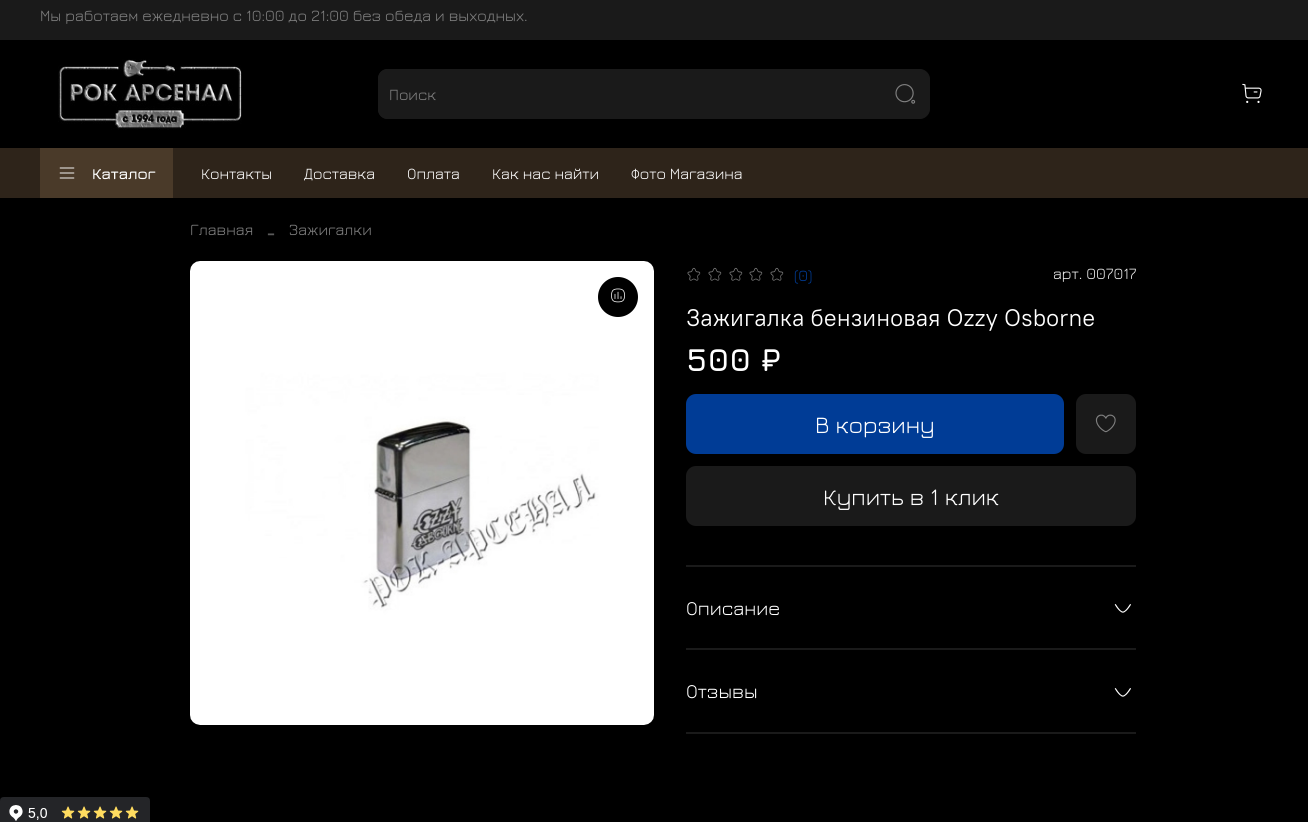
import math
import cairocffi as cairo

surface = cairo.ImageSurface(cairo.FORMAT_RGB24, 1308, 822)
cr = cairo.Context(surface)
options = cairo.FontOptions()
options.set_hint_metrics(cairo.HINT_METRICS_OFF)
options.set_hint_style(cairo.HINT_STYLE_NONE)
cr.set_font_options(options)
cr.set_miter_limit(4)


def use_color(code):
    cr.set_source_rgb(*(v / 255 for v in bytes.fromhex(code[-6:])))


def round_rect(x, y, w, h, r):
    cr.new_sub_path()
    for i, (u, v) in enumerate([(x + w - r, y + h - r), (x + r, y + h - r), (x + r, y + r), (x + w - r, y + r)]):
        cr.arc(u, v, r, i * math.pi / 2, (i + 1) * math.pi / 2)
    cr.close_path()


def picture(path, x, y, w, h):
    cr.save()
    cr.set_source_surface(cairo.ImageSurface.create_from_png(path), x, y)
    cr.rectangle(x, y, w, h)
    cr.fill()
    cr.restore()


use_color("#000000")
cr.paint()
use_color("#1a1a1a")
cr.rectangle(0, 0, 1308, 40)
cr.fill()
cr.select_font_face("Jura")
cr.set_font_size(16)
use_color("#808080")
cr.move_to(40, 21)
cr.show_text("Мы работаем ежедневно с 10:00 до 21:00 без обеда и выходных.")
picture("img1.png", 58, 59, 184, 71)
use_color("#1a1a1a")
cr.new_path()
cr.move_to(388, 69)
cr.line_to(880, 69)
cr.line_to(880, 119)
cr.line_to(388, 119)
cr.curve_to(382.5, 119, 378, 114.5, 378, 109)
cr.line_to(378, 79)
cr.curve_to(378, 73.5, 382.5, 69, 388, 69)
cr.close_path()
cr.fill()
cr.set_fill_rule(cairo.FILL_RULE_EVEN_ODD)
cr.new_path()
cr.move_to(388, 69)
cr.line_to(880, 69)
cr.line_to(880, 119)
cr.line_to(388, 119)
cr.curve_to(382, 119, 378, 115, 378, 109)
cr.line_to(378, 79)
cr.curve_to(378, 73, 382, 69, 388, 69)
cr.close_path()
cr.move_to(388, 70)
cr.line_to(880, 70)
cr.line_to(880, 118)
cr.line_to(388, 118)
cr.curve_to(383, 118, 379, 114, 379, 109)
cr.line_to(379, 79)
cr.curve_to(379, 74, 383, 70, 388, 70)
cr.close_path()
cr.fill()
use_color("#808080")
cr.move_to(389, 100)
cr.show_text("Поиск")
use_color("#1a1a1a")
cr.new_path()
cr.move_to(880.5, 69.5)
cr.line_to(920, 69.5)
cr.curve_to(925, 69.5, 929.5, 74, 929.5, 79)
cr.line_to(929.5, 109)
cr.curve_to(929.5, 114, 925, 118.5, 920, 118.5)
cr.line_to(880.5, 118.5)
cr.close_path()
cr.fill_preserve()
cr.set_line_width(1)
cr.stroke()
picture("img2.png", 895, 84, 21, 20)
picture("img3.png", 1242, 83, 20, 20)
use_color("#2e241a")
cr.rectangle(0, 148, 1308, 50)
cr.fill()
use_color("#4a3a29")
cr.rectangle(40, 148, 133, 50)
cr.fill()
picture("img4.png", 59, 167, 16, 12)
cr.select_font_face("Jura SemiBold")
use_color("#ffffff")
cr.move_to(92, 179)
cr.show_text("Каталог")
cr.select_font_face("Jura")
cr.move_to(201, 179)
cr.show_text("Контакты")
cr.move_to(304, 179)
cr.show_text("Доставка")
cr.move_to(407, 179)
cr.show_text("Оплата")
cr.move_to(492, 179)
cr.show_text("Как нас найти")
cr.move_to(631, 179)
cr.show_text("Фото Магазина")
use_color("#808080")
cr.move_to(190, 235)
cr.show_text("Главная")
cr.select_font_face("Liberation Serif")
cr.set_font_size(24)
use_color("#5a5a5a")
cr.move_to(267, 240)
cr.show_text("-")
cr.select_font_face("Jura")
cr.set_font_size(16)
use_color("#808080")
cr.move_to(289, 235)
cr.show_text("Зажигалки")
picture("img5.png", 190, 261, 464, 464)
use_color("#000000")
cr.arc(618, 297, 20, 0, 2 * math.pi)
cr.fill()
picture("img6.png", 611, 288, 14, 15)
picture("img7.png", 687, 267, 14, 14)
picture("img7.png", 708, 267, 14, 14)
picture("img7.png", 729, 267, 14, 14)
picture("img7.png", 749, 267, 14, 14)
picture("img7.png", 770, 267, 14, 14)
use_color("#003c96")
cr.move_to(794, 281)
cr.show_text("(0)")
use_color("#ededed")
cr.move_to(1053, 279)
cr.show_text("арт. 007017")
cr.select_font_face("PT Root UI")
cr.set_font_size(24)
use_color("#ffffff")
cr.move_to(686, 326)
cr.show_text("Зажигалка бензиновая Ozzy Osborne")
cr.select_font_face("Jura", cairo.FONT_SLANT_NORMAL, cairo.FONT_WEIGHT_BOLD)
cr.set_font_size(32)
cr.move_to(686, 371)
cr.show_text("500 ₽")
use_color("#003c96")
round_rect(686, 394, 378, 60, 10)
cr.fill()
cr.select_font_face("Jura")
cr.set_font_size(24)
use_color("#ffffff")
cr.move_to(815, 433)
cr.show_text("В корзину")
use_color("#1a1a1a")
round_rect(1076, 394, 60, 60, 10)
cr.fill()
picture("img8.png", 1095, 414, 21, 19)
round_rect(686, 466, 450, 60, 10)
cr.fill()
use_color("#ffffff")
cr.move_to(823, 505)
cr.show_text("Купить в 1 клик")
use_color("#1a1a1a")
cr.rectangle(686, 565, 450, 2)
cr.fill()
cr.set_font_size(20)
use_color("#ffffff")
cr.move_to(686, 615)
cr.show_text("Описание")
picture("img9.png", 1114, 604, 17, 9)
use_color("#1a1a1a")
cr.rectangle(686, 648, 450, 2)
cr.fill()
cr.rectangle(686, 732, 450, 2)
cr.fill()
use_color("#ffffff")
cr.move_to(686, 698)
cr.show_text("Отзывы")
picture("img9.png", 1114, 688, 17, 9)
picture("img10.png", 0, 797, 150, 25)
surface.write_to_png("result.png")
